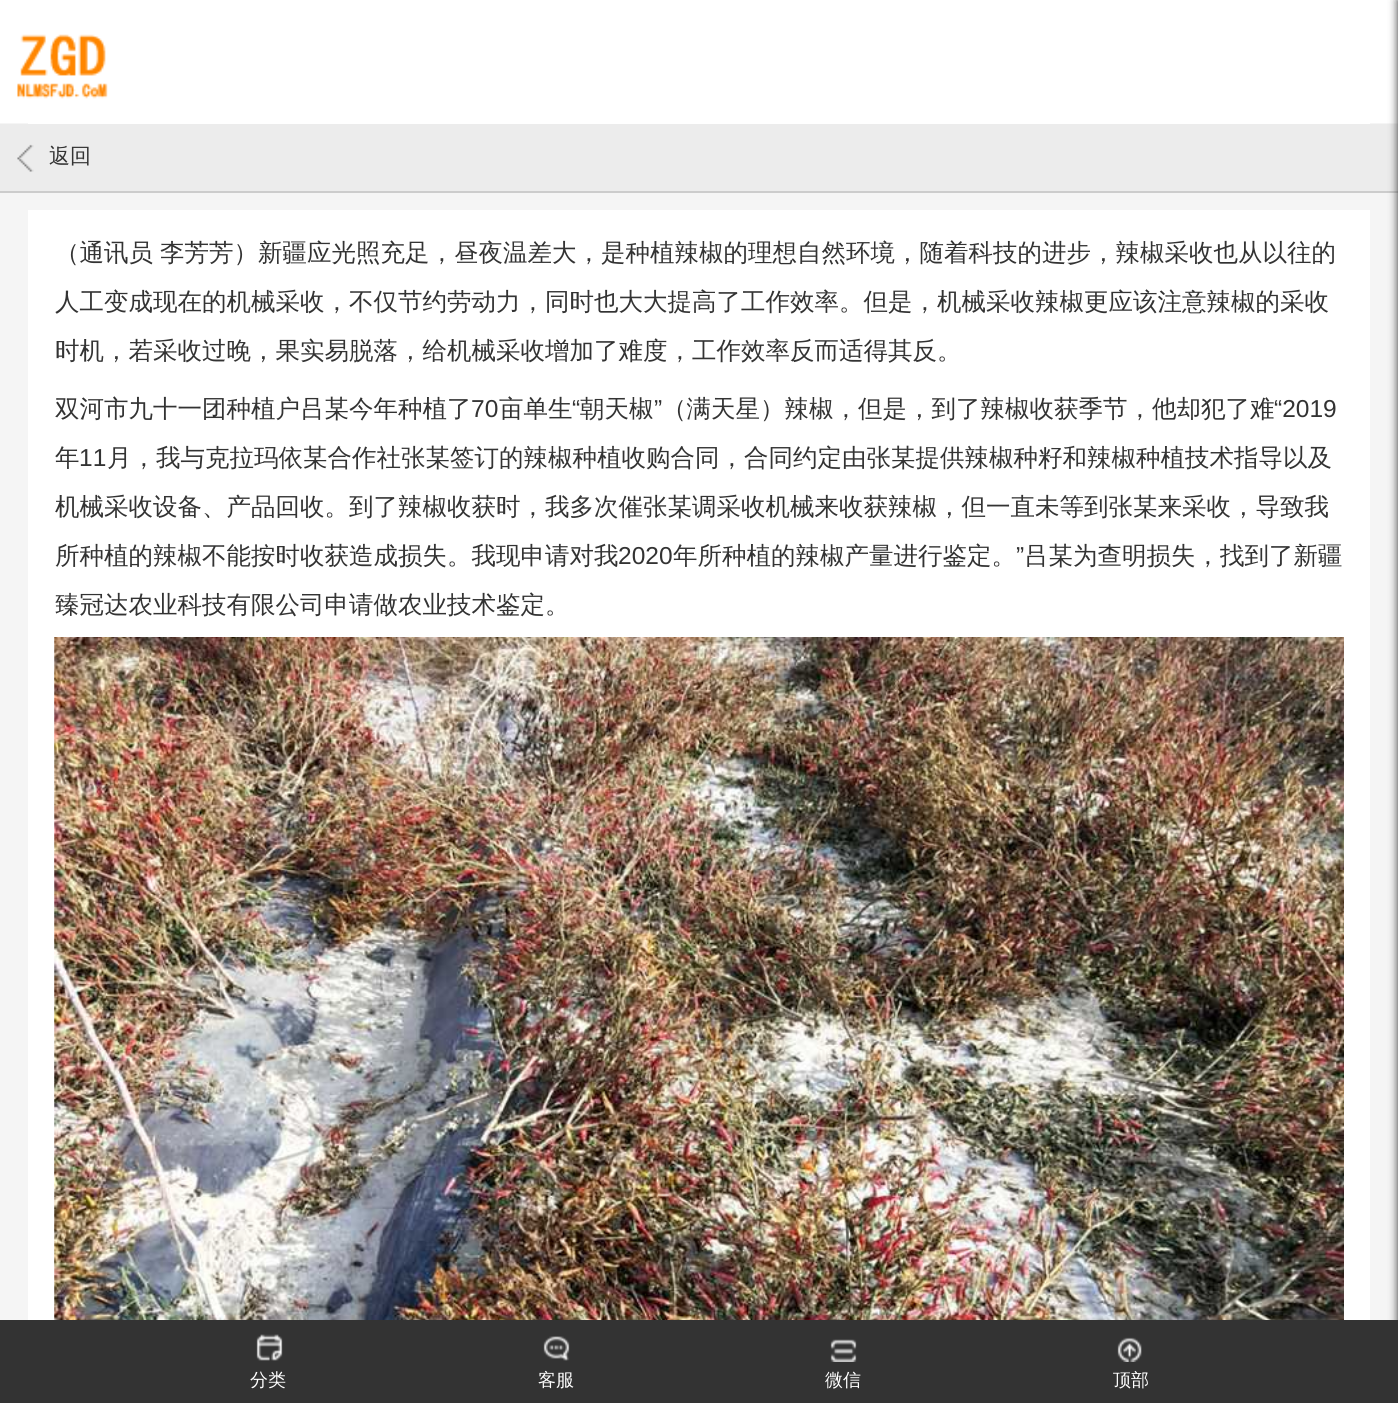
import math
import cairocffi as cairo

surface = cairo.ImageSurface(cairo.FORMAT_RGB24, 1398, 1403)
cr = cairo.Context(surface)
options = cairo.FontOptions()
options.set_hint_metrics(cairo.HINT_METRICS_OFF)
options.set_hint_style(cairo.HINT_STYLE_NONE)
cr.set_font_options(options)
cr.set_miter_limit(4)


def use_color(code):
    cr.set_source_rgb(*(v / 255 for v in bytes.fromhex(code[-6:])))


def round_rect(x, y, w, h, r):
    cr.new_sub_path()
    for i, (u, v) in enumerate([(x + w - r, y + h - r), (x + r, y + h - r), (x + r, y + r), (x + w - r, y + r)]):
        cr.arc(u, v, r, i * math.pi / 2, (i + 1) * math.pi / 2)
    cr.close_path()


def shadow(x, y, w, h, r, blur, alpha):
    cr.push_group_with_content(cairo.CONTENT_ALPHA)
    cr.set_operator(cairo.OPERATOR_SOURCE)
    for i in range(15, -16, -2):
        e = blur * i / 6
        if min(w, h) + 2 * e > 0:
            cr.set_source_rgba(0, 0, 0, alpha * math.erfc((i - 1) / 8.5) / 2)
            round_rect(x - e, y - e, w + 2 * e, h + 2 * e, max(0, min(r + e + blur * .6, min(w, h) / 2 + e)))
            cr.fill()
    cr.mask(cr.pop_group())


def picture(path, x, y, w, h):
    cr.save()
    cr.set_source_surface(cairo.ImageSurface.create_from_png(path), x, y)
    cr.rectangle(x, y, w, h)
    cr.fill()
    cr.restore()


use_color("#f5f5f5")
cr.paint()
use_color("#ffffff")
cr.rectangle(0, 0, 1398, 123)
cr.fill()
picture("img1.png", 17, 34, 91, 65)
use_color("#ececec")
cr.rectangle(0, 124, 1398, 67)
cr.fill()
use_color("#cccccc")
cr.rectangle(0, 191, 1398, 2)
cr.fill()
picture("img2.png", 17, 144, 17, 28)
cr.select_font_face("WenQuanYi Zen Hei Medium")
cr.set_font_size(21)
use_color("#333333")
cr.move_to(49, 163)
cr.show_text("返回")
use_color("#ffffff")
cr.rectangle(28, 123, 1342, 1)
cr.fill()
cr.rectangle(28, 210, 1342, 1110)
cr.fill()
cr.set_font_size(24.5)
use_color("#333333")
cr.move_to(55, 261)
cr.show_text("（通讯员")
cr.move_to(160, 261)
cr.show_text("李芳芳）新疆应光照充足，昼夜温差大，是种植辣椒的理想自然环境，随着科技的进步，辣椒采收也从以往的")
cr.move_to(55, 310)
cr.show_text("人工变成现在的机械采收，不仅节约劳动力，同时也大大提高了工作效率。但是，机械采收辣椒更应该注意辣椒的采收")
cr.move_to(55, 359)
cr.show_text("时机，若采收过晚，果实易脱落，给机械采收增加了难度，工作效率反而适得其反。")
cr.move_to(55, 417)
cr.show_text("双河市九十一团种植户吕某今年种植了")
cr.select_font_face("Liberation Sans")
cr.move_to(471, 417)
cr.show_text("70")
cr.select_font_face("WenQuanYi Zen Hei Medium")
cr.move_to(499, 417)
cr.show_text("亩单生")
cr.select_font_face("Liberation Sans")
cr.move_to(572, 417)
cr.show_text("“")
cr.select_font_face("WenQuanYi Zen Hei Medium")
cr.move_to(580, 417)
cr.show_text("朝天椒")
cr.select_font_face("Liberation Sans")
cr.move_to(654, 417)
cr.show_text("”")
cr.select_font_face("WenQuanYi Zen Hei Medium")
cr.move_to(662, 417)
cr.show_text("（满天星）辣椒，但是，到了辣椒收获季节，他却犯了难")
cr.select_font_face("Liberation Sans")
cr.move_to(1274, 417)
cr.show_text("“2019")
cr.select_font_face("WenQuanYi Zen Hei Medium")
cr.move_to(55, 466)
cr.show_text("年")
cr.select_font_face("Liberation Sans")
cr.move_to(79, 466)
cr.show_text("11")
cr.select_font_face("WenQuanYi Zen Hei Medium")
cr.move_to(107, 466)
cr.show_text("月，我与克拉玛依某合作社张某签订的辣椒种植收购合同，合同约定由张某提供辣椒种籽和辣椒种植技术指导以及")
cr.move_to(55, 515)
cr.show_text("机械采收设备、产品回收。到了辣椒收获时，我多次催张某调采收机械来收获辣椒，但一直未等到张某来采收，导致我")
cr.move_to(55, 564)
cr.show_text("所种植的辣椒不能按时收获造成损失。我现申请对我")
cr.select_font_face("Liberation Sans")
cr.move_to(618, 564)
cr.show_text("2020")
cr.select_font_face("WenQuanYi Zen Hei Medium")
cr.move_to(673, 564)
cr.show_text("年所种植的辣椒产量进行鉴定。")
cr.select_font_face("Liberation Sans")
cr.move_to(1016, 564)
cr.show_text("”")
cr.select_font_face("WenQuanYi Zen Hei Medium")
cr.move_to(1024, 564)
cr.show_text("吕某为查明损失，找到了新疆")
cr.move_to(55, 613)
cr.show_text("臻冠达农业科技有限公司申请做农业技术鉴定。")
picture("img3.png", 54, 637, 1290, 683)
use_color("#333333")
shadow(1398, 0, 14, 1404, 0, 4.5, 1)
use_color("#333333")
cr.rectangle(0, 1320, 1398, 83)
cr.fill()
picture("img4.png", 256, 1334, 27, 27)
cr.set_font_size(18)
use_color("#ffffff")
cr.move_to(250, 1386)
cr.show_text("分类")
picture("img5.png", 543, 1336, 27, 25)
cr.move_to(538, 1386)
cr.show_text("客服")
picture("img6.png", 830, 1339, 27, 23)
cr.move_to(825, 1386)
cr.show_text("微信")
picture("img7.png", 1117, 1337, 25, 25)
cr.move_to(1113, 1386)
cr.show_text("顶部")
surface.write_to_png("result.png")
